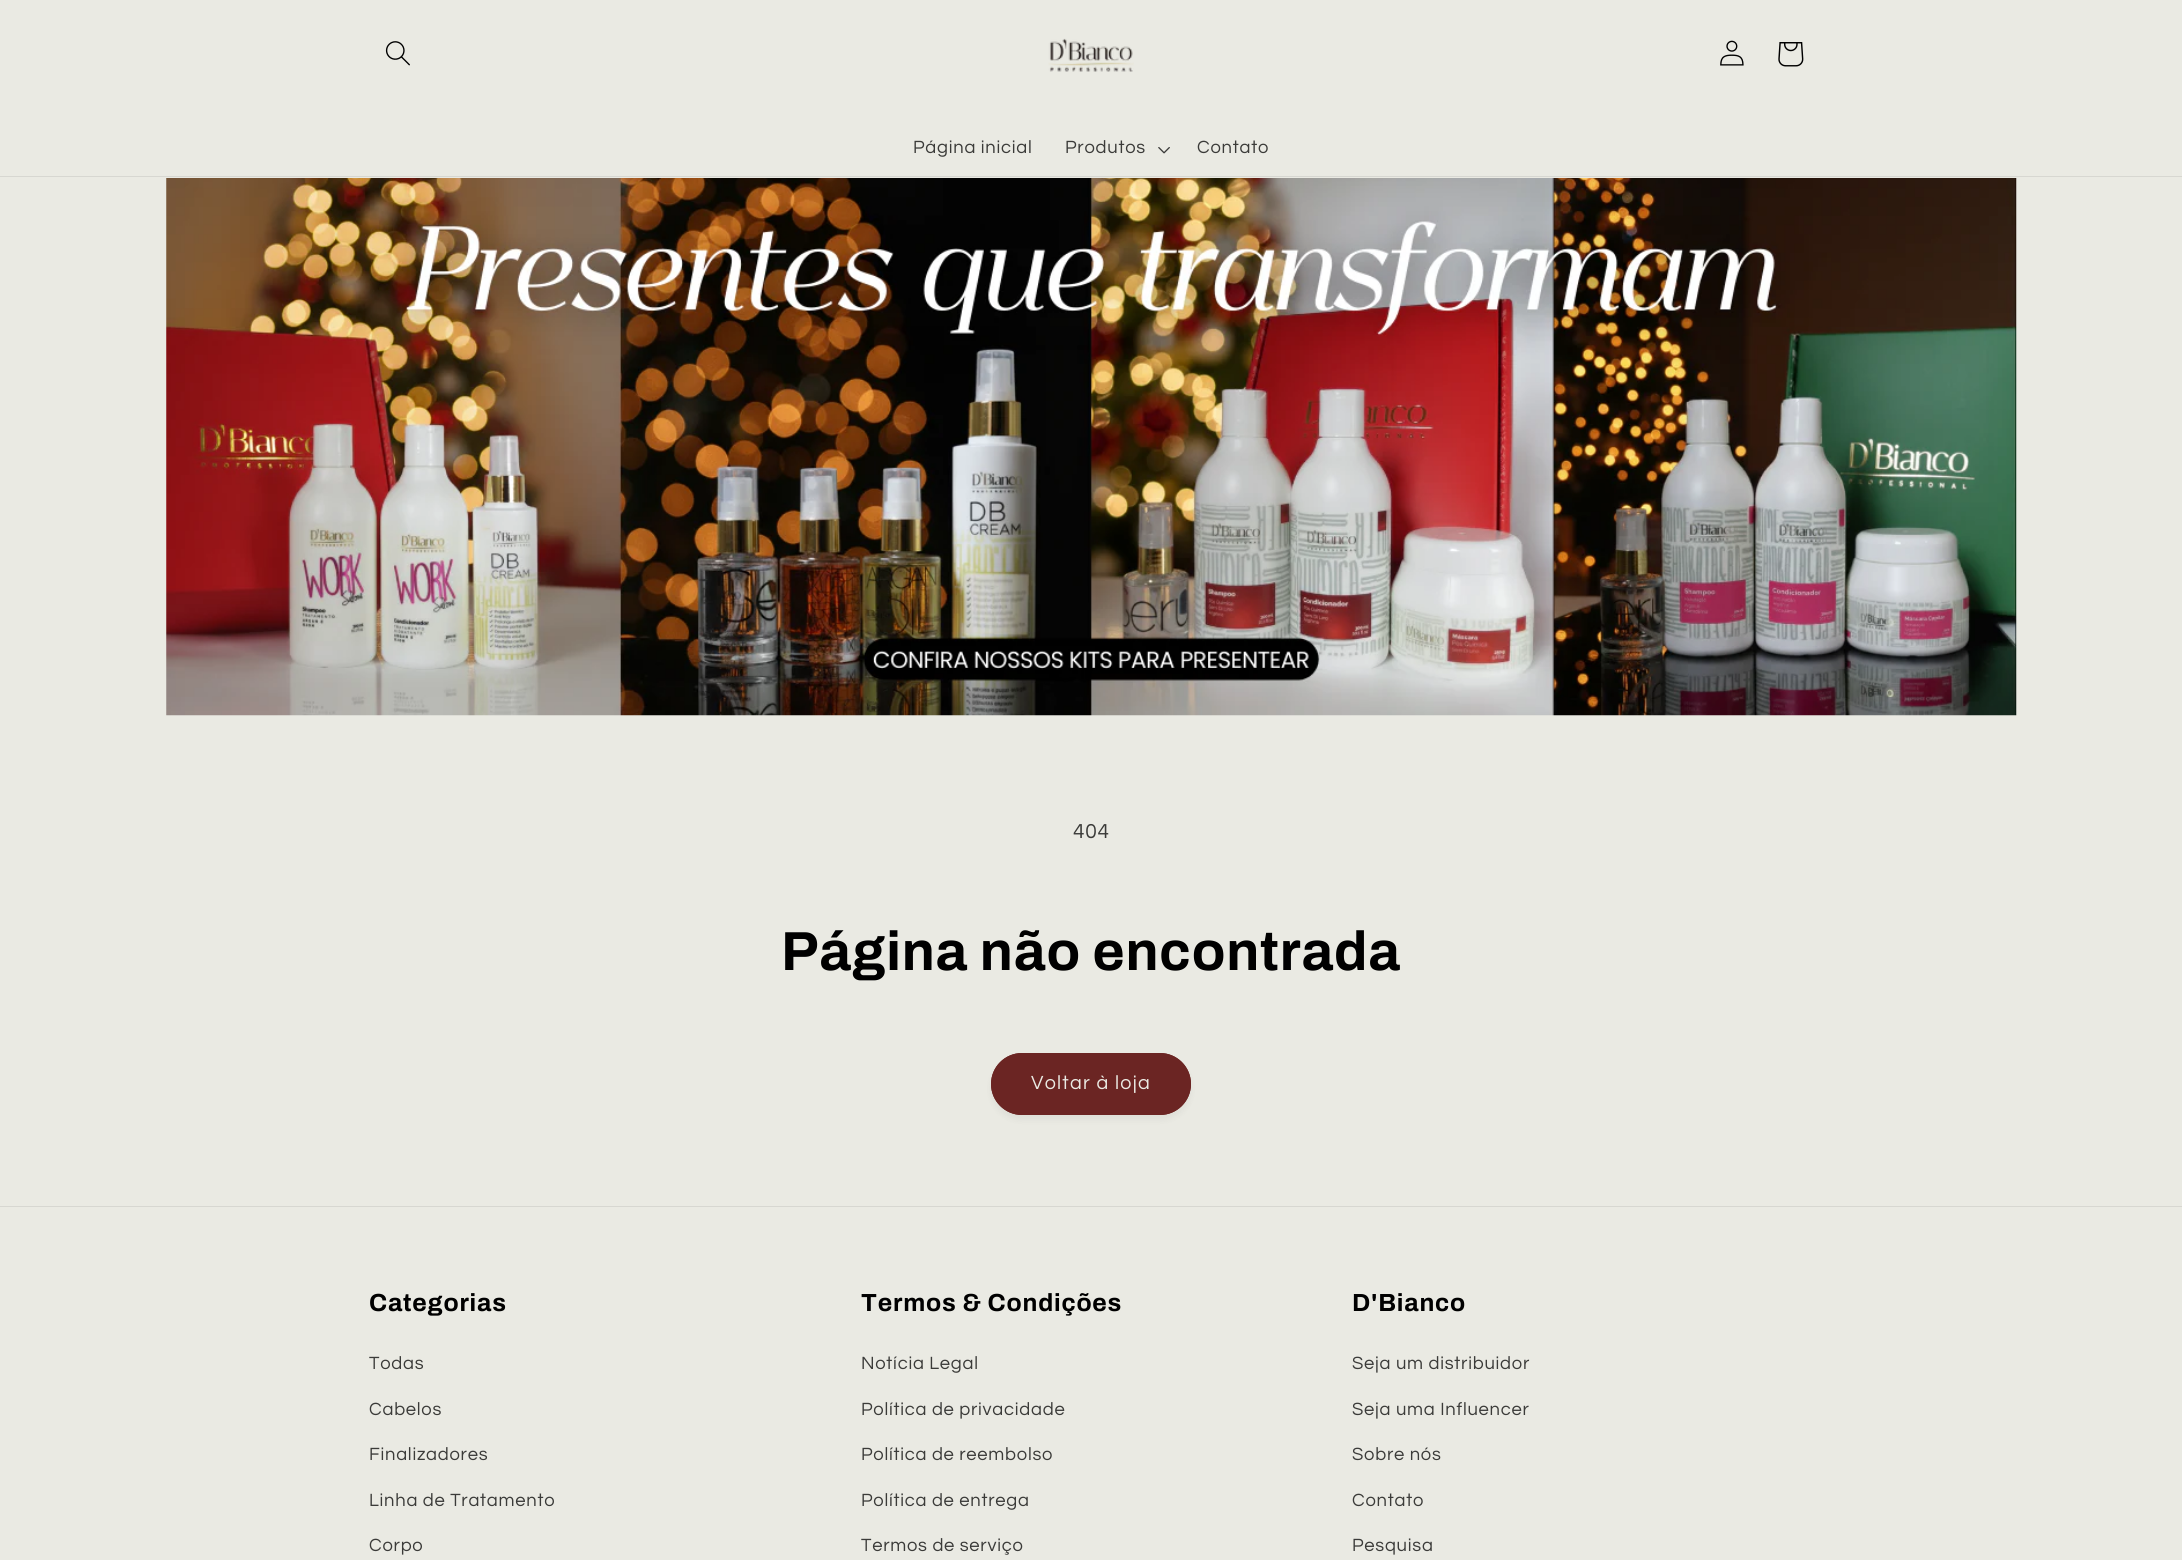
import math
import cairocffi as cairo

surface = cairo.ImageSurface(cairo.FORMAT_RGB24, 2182, 1560)
cr = cairo.Context(surface)
options = cairo.FontOptions()
options.set_hint_metrics(cairo.HINT_METRICS_OFF)
options.set_hint_style(cairo.HINT_STYLE_NONE)
cr.set_font_options(options)
cr.set_miter_limit(4)


def use_color(code):
    cr.set_source_rgb(*(v / 255 for v in bytes.fromhex(code[-6:])))


def spaced_text(x, y, s, letter, word):
    cr.move_to(x, y)
    for ch in s:
        cr.show_text(ch)
        cr.rel_move_to(letter + word * (ch == ' '), 0)


def round_rect(x, y, w, h, r):
    cr.new_sub_path()
    for i, (u, v) in enumerate([(x + w - r, y + h - r), (x + r, y + h - r), (x + r, y + r), (x + w - r, y + r)]):
        cr.arc(u, v, r, i * math.pi / 2, (i + 1) * math.pi / 2)
    cr.close_path()


def shadow(x, y, w, h, r, blur, alpha):
    cr.push_group_with_content(cairo.CONTENT_ALPHA)
    cr.set_operator(cairo.OPERATOR_SOURCE)
    for i in range(15, -16, -2):
        e = blur * i / 6
        if min(w, h) + 2 * e > 0:
            cr.set_source_rgba(0, 0, 0, alpha * math.erfc((i - 1) / 8.5) / 2)
            round_rect(x - e, y - e, w + 2 * e, h + 2 * e, max(0, min(r + e + blur * .6, min(w, h) / 2 + e)))
            cr.fill()
    cr.mask(cr.pop_group())


def picture(path, x, y, w, h):
    cr.save()
    cr.set_source_surface(cairo.ImageSurface.create_from_png(path), x, y)
    cr.rectangle(x, y, w, h)
    cr.fill()
    cr.restore()


use_color("#eaeae3")
cr.paint()
use_color("#d7d7d1")
cr.rectangle(0, 176, 2182, 1)
cr.fill()
picture("img1.png", 385, 41, 25, 25)
picture("img2.png", 1048, 38, 86, 34)
picture("img3.png", 1720, 40, 24, 26)
picture("img4.png", 1778, 42, 26, 25)
cr.select_font_face("Questrial")
cr.set_font_size(18.4)
use_color("#3b3b39")
spaced_text(913, 153, "Página inicial", 0.75, 0)
spaced_text(1065, 153, "Produtos", 0.75, 0)
picture("img5.png", 1158, 147, 12, 7)
spaced_text(1197, 153, "Contato", 0.75, 0)
picture("img6.png", 166, 178, 1851, 538)
cr.set_font_size(21)
spaced_text(1073, 838, "404", 0.75, 0)
cr.select_font_face("Archivo", cairo.FONT_SLANT_NORMAL, cairo.FONT_WEIGHT_BOLD)
cr.set_font_size(55)
use_color("#000000")
spaced_text(781, 970, "Página não encontrada", 0.8, 0)
use_color("#000000")
shadow(991, 1058, 200, 62, 31, 3, 0.05)
use_color("#6b2523")
round_rect(991, 1053, 200, 62, 31)
cr.fill()
round_rect(991.5, 1053.5, 199, 61, 30.5)
cr.set_line_width(1)
cr.stroke()
cr.select_font_face("Questrial")
cr.set_font_size(19.75)
use_color("#eaeae3")
spaced_text(1031, 1089, "Voltar à loja", 1.25, 0)
use_color("#d7d7d1")
cr.rectangle(0, 1206, 2182, 1)
cr.fill()
cr.select_font_face("Archivo", cairo.FONT_SLANT_NORMAL, cairo.FONT_WEIGHT_BOLD)
cr.set_font_size(24.75)
use_color("#000000")
spaced_text(369, 1311, "Categorias", 0.8, 0)
cr.select_font_face("Questrial")
cr.set_font_size(18.4)
use_color("#3b3b39")
spaced_text(369, 1369, "Todas", 0.75, 0)
spaced_text(369, 1415, "Cabelos", 0.75, 0)
spaced_text(369, 1460, "Finalizadores", 0.75, 0)
spaced_text(369, 1506, "Linha de Tratamento", 0.75, 0)
spaced_text(369, 1551, "Corpo", 0.75, 0)
cr.select_font_face("Archivo", cairo.FONT_SLANT_NORMAL, cairo.FONT_WEIGHT_BOLD)
cr.set_font_size(24.75)
use_color("#000000")
spaced_text(861, 1311, "Termos & Condições", 0.8, 0)
cr.select_font_face("Questrial")
cr.set_font_size(18.4)
use_color("#3b3b39")
spaced_text(861, 1369, "Notícia Legal", 0.75, 0)
spaced_text(861, 1415, "Política de privacidade", 0.75, 0)
spaced_text(861, 1460, "Política de reembolso", 0.75, 0)
spaced_text(861, 1506, "Política de entrega", 0.75, 0)
spaced_text(861, 1551, "Termos de serviço", 0.75, 0)
cr.select_font_face("Archivo", cairo.FONT_SLANT_NORMAL, cairo.FONT_WEIGHT_BOLD)
cr.set_font_size(24.75)
use_color("#000000")
spaced_text(1352, 1311, "D'Bianco", 0.8, 0)
cr.select_font_face("Questrial")
cr.set_font_size(18.4)
use_color("#3b3b39")
spaced_text(1352, 1369, "Seja um distribuidor", 0.75, 0)
spaced_text(1352, 1415, "Seja uma Influencer", 0.75, 0)
spaced_text(1352, 1460, "Sobre nós", 0.75, 0)
spaced_text(1352, 1506, "Contato", 0.75, 0)
spaced_text(1352, 1551, "Pesquisa", 0.75, 0)
surface.write_to_png("result.png")
